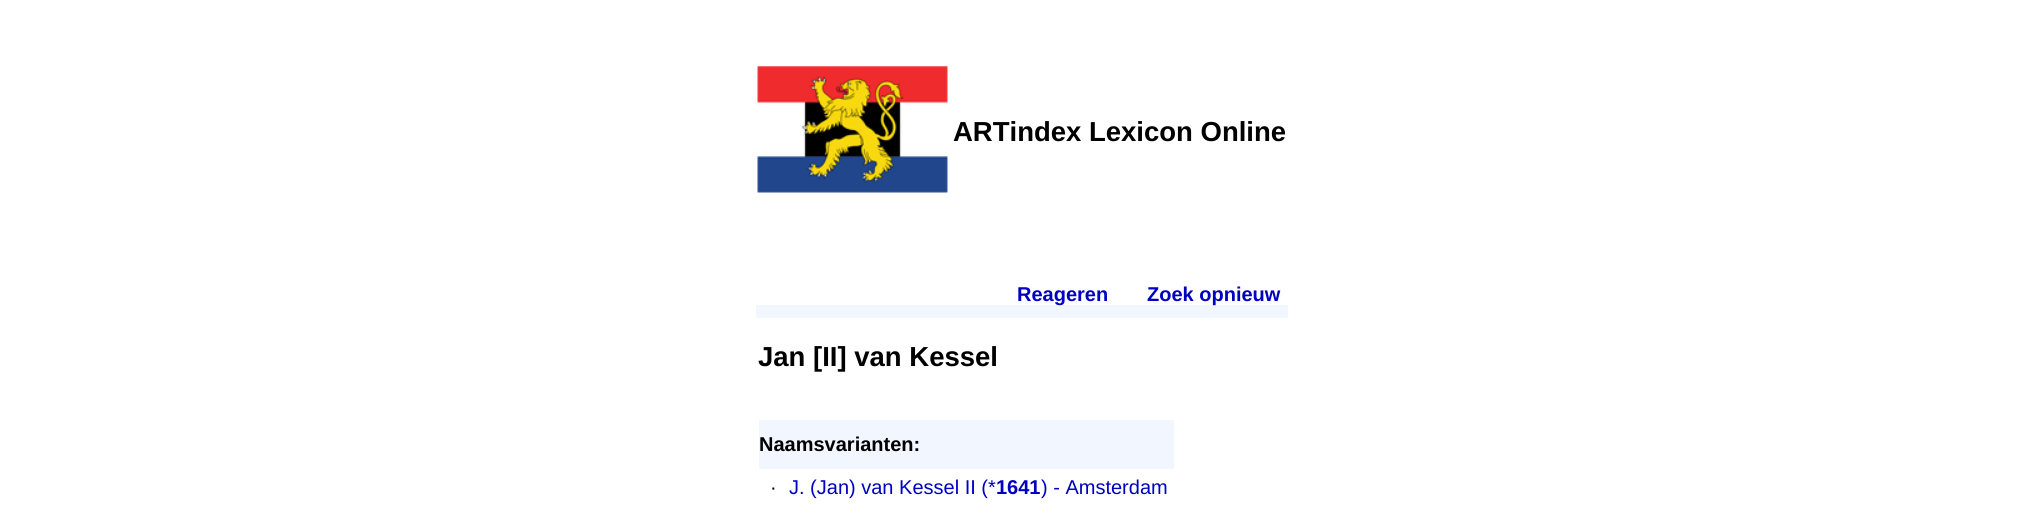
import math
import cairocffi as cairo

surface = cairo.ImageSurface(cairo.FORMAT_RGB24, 2043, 527)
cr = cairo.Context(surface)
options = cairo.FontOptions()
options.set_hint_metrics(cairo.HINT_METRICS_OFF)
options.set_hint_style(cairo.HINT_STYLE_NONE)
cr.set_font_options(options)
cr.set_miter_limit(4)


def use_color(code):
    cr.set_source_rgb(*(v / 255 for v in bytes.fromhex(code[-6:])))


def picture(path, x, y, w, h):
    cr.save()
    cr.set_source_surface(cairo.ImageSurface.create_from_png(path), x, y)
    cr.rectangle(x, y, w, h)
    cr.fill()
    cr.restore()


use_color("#ffffff")
cr.paint()
picture("img1.png", 757, 66, 191, 127)
cr.select_font_face("Liberation Sans", cairo.FONT_SLANT_NORMAL, cairo.FONT_WEIGHT_BOLD)
cr.set_font_size(27.5)
use_color("#000000")
cr.move_to(953, 141)
cr.show_text("ARTindex Lexicon Online")
use_color("#f2f6ff")
cr.rectangle(756, 305, 532, 13)
cr.fill()
cr.set_font_size(20)
use_color("#0000c0")
cr.move_to(1017, 301)
cr.show_text("Reageren")
cr.move_to(1147, 301)
cr.show_text("Zoek opnieuw")
cr.set_font_size(27.5)
use_color("#000000")
cr.move_to(758, 366)
cr.show_text("Jan [II] van Kessel")
use_color("#f2f6ff")
cr.rectangle(759, 420, 415, 49)
cr.fill()
cr.set_font_size(20)
use_color("#000000")
cr.move_to(759, 451)
cr.show_text("Naamsvarianten:")
cr.select_font_face("Liberation Sans")
cr.move_to(770, 494)
cr.show_text("·")
use_color("#0000c0")
cr.move_to(789, 494)
cr.show_text("J. (Jan) van Kessel II (*")
cr.select_font_face("Liberation Sans", cairo.FONT_SLANT_NORMAL, cairo.FONT_WEIGHT_BOLD)
cr.move_to(996, 494)
cr.show_text("1641")
cr.select_font_face("Liberation Sans")
cr.move_to(1041, 494)
cr.show_text(") - Amsterdam")
surface.write_to_png("result.png")
